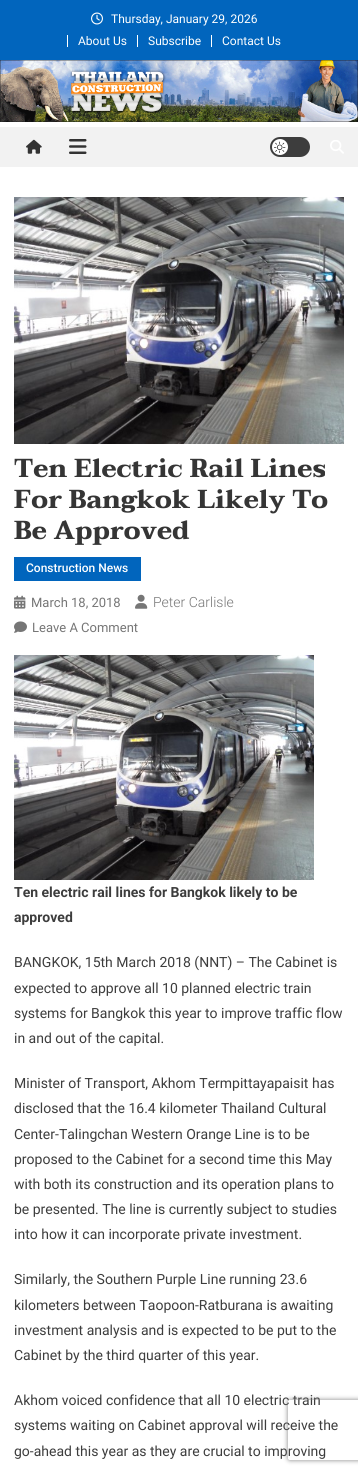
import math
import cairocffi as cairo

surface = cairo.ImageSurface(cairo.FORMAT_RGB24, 358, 1474)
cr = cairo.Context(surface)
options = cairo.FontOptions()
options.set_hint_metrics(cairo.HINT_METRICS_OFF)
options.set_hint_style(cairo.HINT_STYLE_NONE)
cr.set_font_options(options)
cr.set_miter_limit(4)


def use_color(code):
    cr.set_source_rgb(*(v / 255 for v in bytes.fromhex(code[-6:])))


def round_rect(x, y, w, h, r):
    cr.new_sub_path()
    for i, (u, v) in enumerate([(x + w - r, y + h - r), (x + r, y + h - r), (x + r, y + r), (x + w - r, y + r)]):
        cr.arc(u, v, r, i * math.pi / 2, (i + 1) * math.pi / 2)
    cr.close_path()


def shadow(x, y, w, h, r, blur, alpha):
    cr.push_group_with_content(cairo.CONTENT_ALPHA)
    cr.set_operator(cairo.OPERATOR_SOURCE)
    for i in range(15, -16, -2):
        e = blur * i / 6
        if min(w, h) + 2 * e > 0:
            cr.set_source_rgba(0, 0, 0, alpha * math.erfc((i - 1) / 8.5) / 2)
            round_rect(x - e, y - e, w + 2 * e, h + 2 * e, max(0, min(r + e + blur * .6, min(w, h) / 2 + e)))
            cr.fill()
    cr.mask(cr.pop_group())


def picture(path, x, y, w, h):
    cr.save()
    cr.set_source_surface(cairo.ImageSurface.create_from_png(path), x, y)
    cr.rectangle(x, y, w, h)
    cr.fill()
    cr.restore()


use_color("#ffffff")
cr.paint()
use_color("#0165bd")
cr.rectangle(0, 0, 358, 60)
cr.fill()
picture("img1.png", 91, 12, 12, 13)
cr.select_font_face("Roboto")
cr.set_font_size(12)
use_color("#ffffff")
cr.move_to(111, 23)
cr.show_text("Thursday, January 29, 2026")
cr.rectangle(67, 35, 1, 12)
cr.fill()
cr.move_to(78, 45)
cr.show_text("About Us")
cr.rectangle(137, 35, 1, 12)
cr.fill()
cr.move_to(148, 45)
cr.show_text("Subscribe")
cr.rectangle(211, 35, 1, 12)
cr.fill()
cr.move_to(222, 45)
cr.show_text("Contact Us")
picture("img2.png", 0, 60, 358, 62)
use_color("#f2f2f2")
cr.rectangle(0, 127, 358, 40)
cr.fill()
picture("img3.png", 26, 139, 16, 15)
picture("img4.png", 69, 139, 18, 15)
use_color("#3d3d3d")
round_rect(270, 137, 40, 20, 10)
cr.fill()
use_color("#ffffff")
cr.arc(280, 147, 8, 0, 2 * math.pi)
cr.fill()
picture("img5.png", 274, 141, 12, 12)
picture("img6.png", 330, 140, 14, 14)
picture("img7.png", 14, 197, 330, 247)
cr.select_font_face("Taviraj", cairo.FONT_SLANT_NORMAL, cairo.FONT_WEIGHT_BOLD)
cr.set_font_size(26)
use_color("#353535")
cr.move_to(14, 477)
cr.show_text("Ten Electric Rail Lines")
cr.move_to(14, 508)
cr.show_text("For Bangkok Likely To")
cr.move_to(14, 539)
cr.show_text("Be Approved")
use_color("#0165bd")
cr.rectangle(14, 557, 127, 24)
cr.fill()
cr.select_font_face("Roboto Medium")
cr.set_font_size(12)
use_color("#ffffff")
cr.move_to(26, 572)
cr.show_text("Construction News")
picture("img8.png", 14, 595, 12, 14)
cr.select_font_face("Roboto")
cr.set_font_size(13)
use_color("#767676")
cr.move_to(31, 607)
cr.show_text("March 18, 2018")
picture("img9.png", 135, 594, 13, 15)
cr.select_font_face("Roboto Light")
cr.set_font_size(14)
cr.move_to(153, 607)
cr.show_text("Peter Carlisle")
picture("img10.png", 14, 621, 13, 12)
cr.select_font_face("Roboto")
cr.set_font_size(13)
cr.move_to(32, 632)
cr.show_text("Leave A Comment")
picture("img11.png", 14, 655, 300, 225)
cr.select_font_face("Roboto", cairo.FONT_SLANT_NORMAL, cairo.FONT_WEIGHT_BOLD)
cr.set_font_size(14)
use_color("#3d3d3d")
cr.move_to(14, 897)
cr.show_text("Ten electric rail lines for Bangkok likely to be")
cr.move_to(14, 922)
cr.show_text("approved")
cr.select_font_face("Roboto")
cr.move_to(14, 967)
cr.show_text("BANGKOK, 15th March 2018 (NNT) – The Cabinet is")
cr.move_to(14, 993)
cr.show_text("expected to approve all 10 planned electric train")
cr.move_to(14, 1018)
cr.show_text("systems for Bangkok this year to improve traffic flow")
cr.move_to(14, 1043)
cr.show_text("in and out of the capital.")
cr.move_to(14, 1088)
cr.show_text("Minister of Transport, Akhom Termpittayapaisit has")
cr.move_to(14, 1113)
cr.show_text("disclosed that the 16.4 kilometer Thailand Cultural")
cr.move_to(14, 1139)
cr.show_text("Center-Talingchan Western Orange Line is to be")
cr.move_to(14, 1164)
cr.show_text("proposed to the Cabinet for a second time this May")
cr.move_to(14, 1189)
cr.show_text("with both its construction and its operation plans to")
cr.move_to(14, 1214)
cr.show_text("be presented. The line is currently subject to studies")
cr.move_to(14, 1239)
cr.show_text("into how it can incorporate private investment.")
cr.move_to(14, 1284)
cr.show_text("Similarly, the Southern Purple Line running 23.6")
cr.move_to(14, 1310)
cr.show_text("kilometers between Taopoon-Ratburana is awaiting")
cr.move_to(14, 1335)
cr.show_text("investment analysis and is expected to be put to the")
cr.move_to(14, 1360)
cr.show_text("Cabinet by the third quarter of this year.")
cr.move_to(14, 1405)
cr.show_text("Akhom voiced confidence that all 10 electric train")
cr.move_to(14, 1430)
cr.show_text("systems waiting on Cabinet approval will receive the")
cr.move_to(14, 1456)
cr.show_text("go-ahead this year as they are crucial to improving")
cr.save()
cr.set_fill_rule(cairo.FILL_RULE_EVEN_ODD)
cr.new_path()
cr.move_to(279, 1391)
cr.line_to(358, 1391)
cr.line_to(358, 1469)
cr.line_to(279, 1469)
cr.close_path()
cr.move_to(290, 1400)
cr.line_to(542, 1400)
cr.curve_to(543, 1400, 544, 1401, 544, 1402)
cr.line_to(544, 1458)
cr.curve_to(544, 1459, 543, 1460, 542, 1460)
cr.line_to(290, 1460)
cr.curve_to(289, 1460, 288, 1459, 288, 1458)
cr.line_to(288, 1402)
cr.curve_to(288, 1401, 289, 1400, 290, 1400)
cr.close_path()
cr.clip()
use_color("#808080")
shadow(288, 1400, 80, 60, 2, 2.5, 1)
cr.restore()
surface.write_to_png("result.png")
